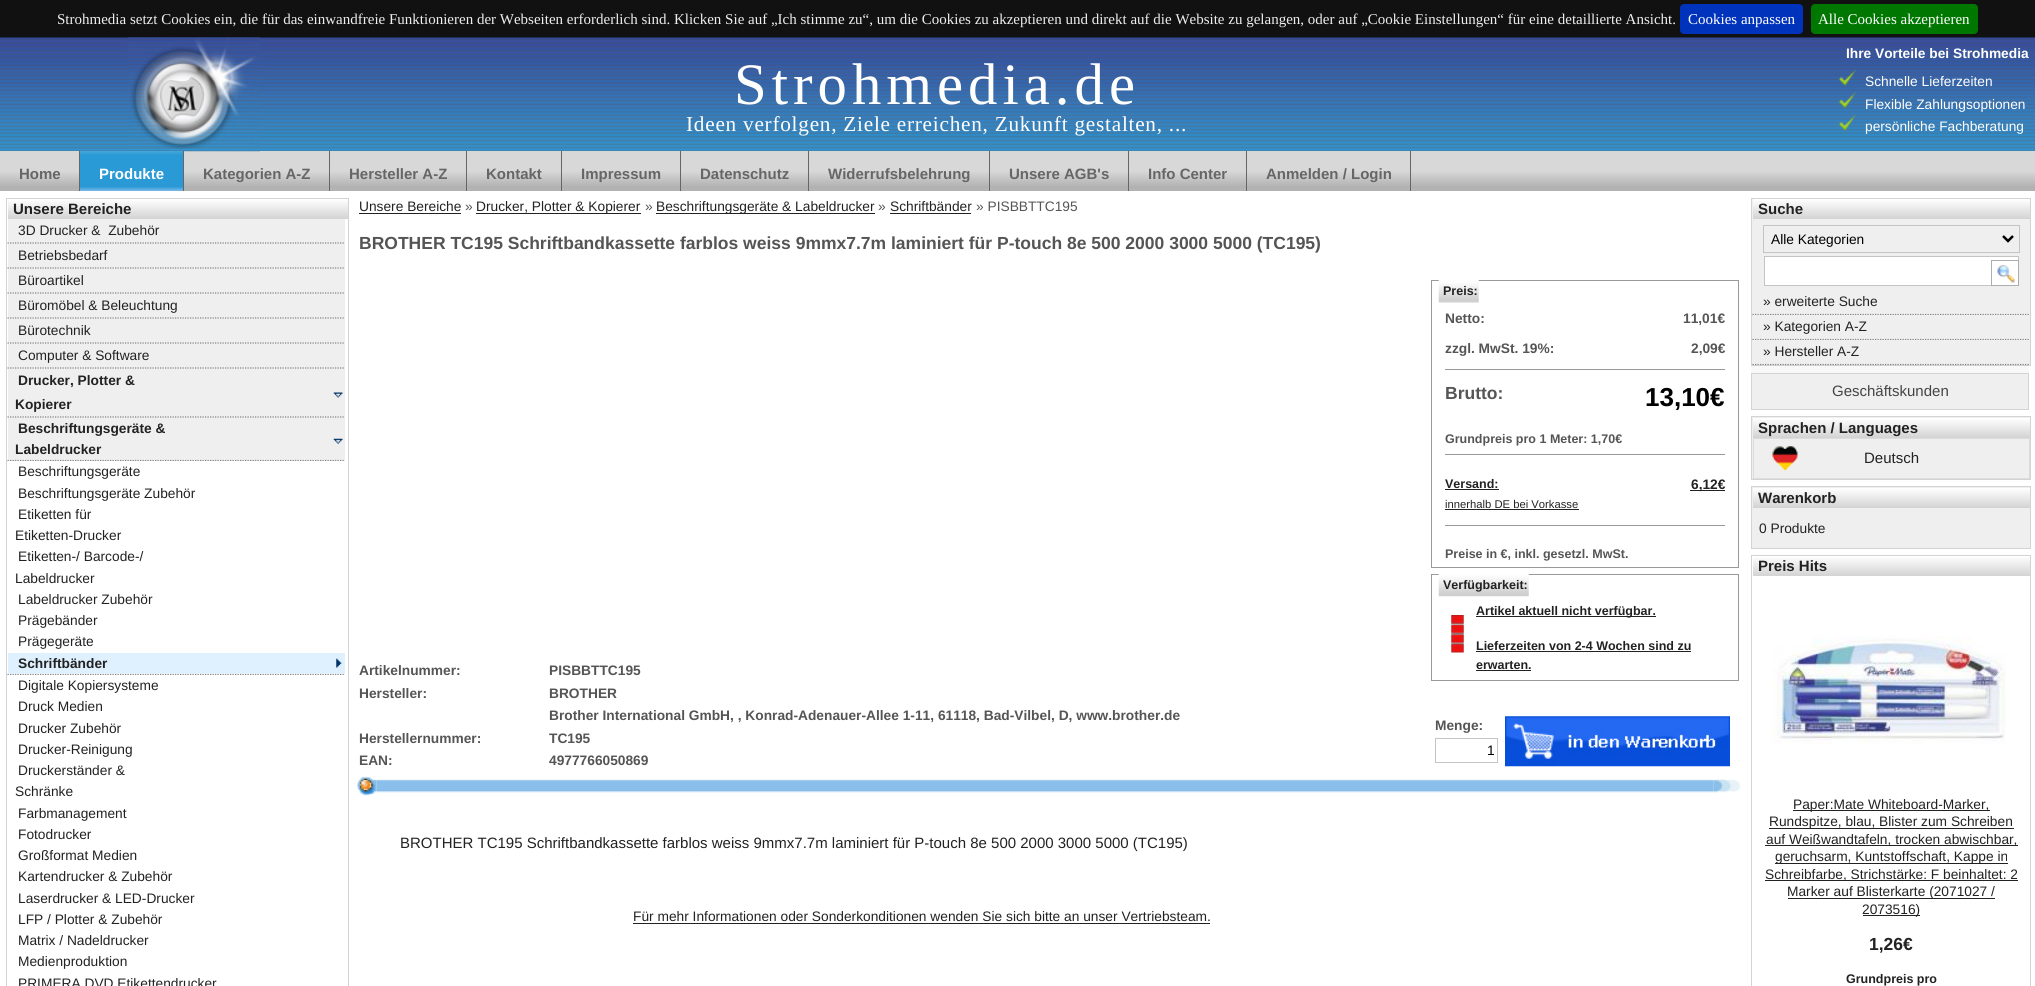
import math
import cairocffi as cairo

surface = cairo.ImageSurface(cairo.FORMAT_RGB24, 2035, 986)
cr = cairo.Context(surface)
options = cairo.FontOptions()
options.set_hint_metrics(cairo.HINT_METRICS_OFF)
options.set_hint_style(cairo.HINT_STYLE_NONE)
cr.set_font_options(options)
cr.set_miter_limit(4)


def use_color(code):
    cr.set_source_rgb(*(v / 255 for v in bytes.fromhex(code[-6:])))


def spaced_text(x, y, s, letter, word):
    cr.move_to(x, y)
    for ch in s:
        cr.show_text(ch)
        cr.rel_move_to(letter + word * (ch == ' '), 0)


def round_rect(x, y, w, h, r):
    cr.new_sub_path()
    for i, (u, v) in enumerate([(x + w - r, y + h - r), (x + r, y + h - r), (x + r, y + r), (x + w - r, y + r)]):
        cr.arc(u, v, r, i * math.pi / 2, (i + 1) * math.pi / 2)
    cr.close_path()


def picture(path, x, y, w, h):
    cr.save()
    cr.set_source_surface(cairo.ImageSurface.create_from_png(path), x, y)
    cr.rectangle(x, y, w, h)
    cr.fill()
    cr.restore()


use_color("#ffffff")
cr.paint()
use_color("#111111")
cr.rectangle(0, 0, 2035, 38)
cr.fill()
cr.select_font_face("Liberation Serif")
cr.set_font_size(15)
use_color("#eeeeee")
cr.move_to(57, 24)
cr.show_text("Strohmedia setzt Cookies ein, die für das einwandfreie Funktionieren der Webseiten erforderlich sind. Klicken Sie auf „Ich stimme zu“, um die Cookies zu akzeptieren und direkt auf die Website zu gelangen, oder auf „Cookie Einstellungen“ für eine detaillierte Ansicht.")
use_color("#0033bb")
round_rect(1680, 4, 123, 30, 4)
cr.fill()
use_color("#ffffff")
cr.move_to(1688, 24)
cr.show_text("Cookies anpassen")
use_color("#007700")
round_rect(1811, 4, 167, 30, 4)
cr.fill()
use_color("#ffffff")
cr.move_to(1818, 24)
cr.show_text("Alle Cookies akzeptieren")
picture("img1.png", 0, 37, 2035, 114)
gradient = cairo.LinearGradient(1018, 151, 1018, 191)
gradient.add_color_stop_rgba(0, 0.847, 0.847, 0.847, 1)
gradient.add_color_stop_rgba(0.5, 0.847, 0.847, 0.847, 1)
gradient.add_color_stop_rgba(0.89, 0.698, 0.698, 0.698, 1)
gradient.add_color_stop_rgba(1, 0.698, 0.698, 0.698, 1)
cr.set_source(gradient)
cr.rectangle(0, 151, 2035, 40)
cr.fill()
picture("img2.png", 127, 37, 133, 115)
cr.set_font_size(58.75)
use_color("#ffffff")
spaced_text(734, 104, "Strohmedia.de", 5, 0)
cr.set_font_size(21.25)
spaced_text(686, 131, "Ideen verfolgen, Ziele erreichen, Zukunft gestalten, ...", 0.75, 0)
cr.select_font_face("Liberation Sans", cairo.FONT_SLANT_NORMAL, cairo.FONT_WEIGHT_BOLD)
cr.set_font_size(13.75)
cr.move_to(1846, 58)
cr.show_text("Ihre Vorteile bei Strohmedia")
picture("img3.png", 1838, 69, 19, 18)
cr.select_font_face("Liberation Sans")
cr.move_to(1865, 86)
cr.show_text("Schnelle Lieferzeiten")
picture("img4.png", 1838, 91, 18, 18)
cr.move_to(1865, 109)
cr.show_text("Flexible Zahlungsoptionen")
picture("img5.png", 1838, 114, 19, 18)
cr.move_to(1865, 131)
cr.show_text("persönliche Fachberatung")
use_color("#666666")
cr.rectangle(79, 151, 1, 40)
cr.fill()
cr.select_font_face("Liberation Sans", cairo.FONT_SLANT_NORMAL, cairo.FONT_WEIGHT_BOLD)
cr.set_font_size(15)
cr.move_to(19, 179)
cr.show_text("Home")
gradient = cairo.LinearGradient(131, 151, 131, 191)
gradient.add_color_stop_rgba(0, 0.286, 0.651, 0.847, 1)
gradient.add_color_stop_rgba(0.1, 0.161, 0.604, 0.835, 1)
gradient.add_color_stop_rgba(0.89, 0.161, 0.604, 0.835, 1)
gradient.add_color_stop_rgba(1, 0.49, 0.725, 0.91, 1)
cr.set_source(gradient)
cr.rectangle(80, 151, 103, 40)
cr.fill()
use_color("#666666")
cr.rectangle(183, 151, 1, 40)
cr.fill()
use_color("#ffffff")
cr.move_to(99, 179)
cr.show_text("Produkte")
use_color("#666666")
cr.rectangle(329, 151, 1, 40)
cr.fill()
cr.move_to(203, 179)
cr.show_text("Kategorien A-Z")
cr.rectangle(466, 151, 1, 40)
cr.fill()
cr.move_to(349, 179)
cr.show_text("Hersteller A-Z")
cr.rectangle(561, 151, 1, 40)
cr.fill()
cr.move_to(486, 179)
cr.show_text("Kontakt")
cr.rectangle(680, 151, 1, 40)
cr.fill()
cr.move_to(581, 179)
cr.show_text("Impressum")
cr.rectangle(808, 151, 1, 40)
cr.fill()
cr.move_to(700, 179)
cr.show_text("Datenschutz")
cr.rectangle(989, 151, 1, 40)
cr.fill()
cr.move_to(828, 179)
cr.show_text("Widerrufsbelehrung")
cr.rectangle(1128, 151, 1, 40)
cr.fill()
cr.move_to(1009, 179)
cr.show_text("Unsere AGB's")
cr.rectangle(1246, 151, 1, 40)
cr.fill()
cr.move_to(1148, 179)
cr.show_text("Info Center")
cr.rectangle(1410, 151, 1, 40)
cr.fill()
cr.move_to(1266, 179)
cr.show_text("Anmelden / Login")
cr.rectangle(6.5, 198.5, 342, 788)
use_color("#d3d3d3")
cr.set_line_width(1)
cr.stroke()
gradient = cairo.LinearGradient(178, 219, 178, 199)
gradient.add_color_stop_rgba(0, 0.827, 0.827, 0.827, 1)
gradient.add_color_stop_rgba(1, 1, 1, 1, 1)
cr.set_source(gradient)
cr.rectangle(8, 200, 340, 19)
cr.fill()
use_color("#222222")
cr.move_to(13, 214)
cr.show_text("Unsere Bereiche")
use_color("#efefef")
cr.rectangle(8, 219, 337, 242)
cr.fill()
cr.new_path()
cr.move_to(7.5, 243)
cr.line_to(345, 243)
use_color("#808080")
cr.set_line_width(1.2)
cr.set_dash([1.25, 1.25])
cr.stroke()
cr.select_font_face("Liberation Sans")
cr.set_font_size(13.75)
use_color("#222222")
cr.move_to(18, 235)
cr.show_text("3D Drucker &  Zubehör")
cr.new_path()
cr.move_to(7.5, 268)
cr.line_to(345, 268)
use_color("#808080")
cr.stroke()
use_color("#222222")
cr.move_to(18, 260)
cr.show_text("Betriebsbedarf")
cr.new_path()
cr.move_to(7.5, 293)
cr.line_to(345, 293)
use_color("#808080")
cr.stroke()
use_color("#222222")
cr.move_to(18, 285)
cr.show_text("Büroartikel")
cr.new_path()
cr.move_to(7.5, 318)
cr.line_to(345, 318)
use_color("#808080")
cr.stroke()
use_color("#222222")
cr.move_to(18, 310)
cr.show_text("Büromöbel & Beleuchtung")
cr.new_path()
cr.move_to(7.5, 343)
cr.line_to(345, 343)
use_color("#808080")
cr.stroke()
use_color("#222222")
cr.move_to(18, 335)
cr.show_text("Bürotechnik")
cr.new_path()
cr.move_to(7.5, 368)
cr.line_to(345, 368)
use_color("#808080")
cr.stroke()
use_color("#222222")
cr.move_to(18, 360)
cr.show_text("Computer & Software")
picture("img6.png", 333, 392, 10, 6)
cr.new_path()
cr.move_to(7.5, 417)
cr.line_to(345, 417)
use_color("#808080")
cr.stroke()
cr.select_font_face("Liberation Sans", cairo.FONT_SLANT_NORMAL, cairo.FONT_WEIGHT_BOLD)
use_color("#222222")
cr.move_to(18, 385)
cr.show_text("Drucker, Plotter &")
cr.move_to(15, 409)
cr.show_text("Kopierer")
cr.new_path()
cr.move_to(7.5, 674.5)
cr.line_to(345, 674.5)
use_color("#808080")
cr.stroke()
picture("img7.png", 333, 438, 10, 6)
cr.new_path()
cr.move_to(7.5, 460.5)
cr.line_to(345, 460.5)
cr.stroke()
use_color("#222222")
cr.move_to(18, 433)
cr.show_text("Beschriftungsgeräte &")
cr.move_to(15, 454)
cr.show_text("Labeldrucker")
use_color("#ffffff")
cr.rectangle(8, 461, 336, 1)
cr.fill()
cr.select_font_face("Liberation Sans")
use_color("#222222")
cr.move_to(18, 476)
cr.show_text("Beschriftungsgeräte")
cr.move_to(18, 498)
cr.show_text("Beschriftungsgeräte Zubehör")
cr.move_to(18, 519)
cr.show_text("Etiketten für")
cr.move_to(15, 540)
cr.show_text("Etiketten-Drucker")
cr.move_to(18, 561)
cr.show_text("Etiketten-/ Barcode-/")
cr.move_to(15, 583)
cr.show_text("Labeldrucker")
cr.move_to(18, 604)
cr.show_text("Labeldrucker Zubehör")
cr.move_to(18, 625)
cr.show_text("Prägebänder")
cr.move_to(18, 646)
cr.show_text("Prägegeräte")
use_color("#dff1ff")
cr.rectangle(8, 653, 337, 21)
cr.fill()
picture("img8.png", 336, 658, 6, 10)
cr.select_font_face("Liberation Sans", cairo.FONT_SLANT_NORMAL, cairo.FONT_WEIGHT_BOLD)
use_color("#222222")
cr.move_to(18, 668)
cr.show_text("Schriftbänder")
use_color("#ffffff")
cr.rectangle(8, 675, 336, 1)
cr.fill()
cr.select_font_face("Liberation Sans")
use_color("#222222")
cr.move_to(18, 690)
cr.show_text("Digitale Kopiersysteme")
cr.move_to(18, 711)
cr.show_text("Druck Medien")
cr.move_to(18, 733)
cr.show_text("Drucker Zubehör")
cr.move_to(18, 754)
cr.show_text("Drucker-Reinigung")
cr.move_to(18, 775)
cr.show_text("Druckerständer &")
cr.move_to(15, 796)
cr.show_text("Schränke")
cr.move_to(18, 818)
cr.show_text("Farbmanagement")
cr.move_to(18, 839)
cr.show_text("Fotodrucker")
cr.move_to(18, 860)
cr.show_text("Großformat Medien")
cr.move_to(18, 881)
cr.show_text("Kartendrucker & Zubehör")
cr.move_to(18, 903)
cr.show_text("Laserdrucker & LED-Drucker")
cr.move_to(18, 924)
cr.show_text("LFP / Plotter & Zubehör")
cr.move_to(18, 945)
cr.show_text("Matrix / Nadeldrucker")
cr.move_to(18, 966)
cr.show_text("Medienproduktion")
cr.move_to(18, 988)
cr.show_text("PRIMERA DVD Etikettendrucker")
cr.move_to(359, 211)
cr.show_text("Unsere Bereiche")
cr.rectangle(359, 213, 102, 1)
cr.fill()
use_color("#555555")
cr.move_to(465, 211)
cr.show_text("»")
use_color("#222222")
cr.rectangle(476, 213, 165, 1)
cr.fill()
cr.move_to(476, 211)
cr.show_text("Drucker, Plotter & Kopierer")
use_color("#555555")
cr.move_to(645, 211)
cr.show_text("»")
use_color("#222222")
cr.rectangle(656, 213, 219, 1)
cr.fill()
cr.move_to(656, 211)
cr.show_text("Beschriftungsgeräte & Labeldrucker")
use_color("#555555")
cr.move_to(878, 211)
cr.show_text("»")
use_color("#222222")
cr.move_to(890, 211)
cr.show_text("Schriftbänder")
cr.rectangle(890, 213, 81, 1)
cr.fill()
use_color("#555555")
cr.move_to(976, 211)
cr.show_text("» PISBBTTC195")
cr.select_font_face("Liberation Sans", cairo.FONT_SLANT_NORMAL, cairo.FONT_WEIGHT_BOLD)
cr.set_font_size(17.5)
cr.move_to(359, 249)
cr.show_text("BROTHER TC195 Schriftbandkassette farblos weiss 9mmx7.7m laminiert für P-touch 8e 500 2000 3000 5000 (TC195)")
cr.set_font_size(13.75)
cr.move_to(359, 675)
cr.show_text("Artikelnummer:")
cr.move_to(549, 675)
cr.show_text("PISBBTTC195")
cr.move_to(359, 698)
cr.show_text("Hersteller:")
cr.move_to(549, 698)
cr.show_text("BROTHER")
cr.move_to(549, 720)
cr.show_text("Brother International GmbH, , Konrad-Adenauer-Allee 1-11, 61118, Bad-Vilbel, D, www.brother.de")
cr.move_to(359, 743)
cr.show_text("Herstellernummer:")
cr.move_to(549, 743)
cr.show_text("TC195")
cr.move_to(359, 765)
cr.show_text("EAN:")
cr.move_to(549, 765)
cr.show_text("4977766050869")
cr.rectangle(1431.5, 280.5, 307, 287)
use_color("#999999")
cr.set_line_width(1)
cr.set_dash([])
cr.stroke()
picture("img9.png", 1438, 280, 41, 23)
cr.set_font_size(12.5)
use_color("#222222")
cr.move_to(1443, 295)
cr.show_text("Preis:")
cr.set_font_size(13.75)
use_color("#555555")
cr.move_to(1445, 323)
cr.show_text("Netto:")
cr.move_to(1683, 323)
cr.show_text("11,01€")
use_color("#999999")
cr.rectangle(1445, 369, 280, 1)
cr.fill()
use_color("#555555")
cr.move_to(1445, 353)
cr.show_text("zzgl. MwSt. 19%:")
cr.move_to(1691, 353)
cr.show_text("2,09€")
cr.set_font_size(17.5)
cr.move_to(1445, 399)
cr.show_text("Brutto:")
cr.set_font_size(26)
use_color("#000000")
cr.move_to(1645, 406)
cr.show_text("13,10€")
use_color("#999999")
cr.rectangle(1445, 454, 280, 1)
cr.fill()
cr.set_font_size(12.5)
use_color("#555555")
cr.move_to(1445, 443)
cr.show_text("Grundpreis pro 1 Meter: 1,70€")
use_color("#999999")
cr.rectangle(1445, 525, 280, 1)
cr.fill()
use_color("#222222")
cr.move_to(1445, 488)
cr.show_text("Versand:")
cr.rectangle(1445, 489, 54, 1)
cr.fill()
cr.select_font_face("Liberation Sans")
cr.set_font_size(11.25)
cr.move_to(1445, 508)
cr.show_text("innerhalb DE bei Vorkasse")
cr.rectangle(1445, 509, 134, 1)
cr.fill()
cr.rectangle(1690, 490, 35, 1)
cr.fill()
cr.select_font_face("Liberation Sans", cairo.FONT_SLANT_NORMAL, cairo.FONT_WEIGHT_BOLD)
cr.set_font_size(13.75)
cr.move_to(1691, 489)
cr.show_text("6,12€")
cr.set_font_size(12.5)
use_color("#555555")
cr.move_to(1445, 558)
cr.show_text("Preise in €, inkl. gesetzl. MwSt.")
cr.rectangle(1431.5, 574.5, 307, 106)
use_color("#999999")
cr.stroke()
picture("img10.png", 1438, 574, 91, 23)
use_color("#222222")
cr.move_to(1443, 589)
cr.show_text("Verfügbarkeit:")
picture("img11.png", 1451, 615, 13, 38)
cr.rectangle(1476, 616, 180, 1)
cr.fill()
cr.move_to(1476, 615)
cr.show_text("Artikel aktuell nicht verfügbar.")
cr.move_to(1476, 650)
cr.show_text("Lieferzeiten von 2-4 Wochen sind zu")
cr.rectangle(1476, 651, 215, 1)
cr.fill()
cr.move_to(1476, 669)
cr.show_text("erwarten.")
cr.rectangle(1476, 670, 55, 1)
cr.fill()
cr.set_font_size(13.75)
use_color("#555555")
cr.move_to(1435, 730)
cr.show_text("Menge:")
cr.rectangle(1435.5, 738.5, 62, 24)
use_color("#c6c3c3")
cr.stroke()
cr.select_font_face("Liberation Sans")
use_color("#000000")
cr.move_to(1487, 755)
cr.show_text("1")
picture("img12.png", 1505, 716, 225, 51)
picture("img14.png", 376, 779, 1338, 14)
picture("img13.png", 357, 776, 20, 20)
picture("img15.png", 1713, 779, 27, 14)
cr.set_font_size(15)
use_color("#222222")
cr.move_to(400, 848)
cr.show_text("BROTHER TC195 Schriftbandkassette farblos weiss 9mmx7.7m laminiert für P-touch 8e 500 2000 3000 5000 (TC195)")
cr.set_font_size(13.75)
cr.move_to(633, 921)
cr.show_text("Für mehr Informationen oder Sonderkonditionen wenden Sie sich bitte an unser Vertriebsteam.")
cr.rectangle(633, 923, 577, 1)
cr.fill()
use_color("#efefef")
cr.rectangle(1751.5, 198.5, 279, 167)
cr.fill_preserve()
use_color("#d3d3d3")
cr.stroke()
gradient = cairo.LinearGradient(1891, 219, 1891, 199)
gradient.add_color_stop_rgba(0, 0.827, 0.827, 0.827, 1)
gradient.add_color_stop_rgba(1, 1, 1, 1, 1)
cr.set_source(gradient)
cr.rectangle(1753, 199, 277, 20)
cr.fill()
cr.select_font_face("Liberation Sans", cairo.FONT_SLANT_NORMAL, cairo.FONT_WEIGHT_BOLD)
cr.set_font_size(15)
use_color("#222222")
cr.move_to(1758, 214)
cr.show_text("Suche")
cr.rectangle(1763.5, 225.5, 256, 27)
use_color("#c6c3c3")
cr.stroke()
cr.new_path()
cr.move_to(2003, 236)
cr.line_to(2008, 241)
cr.line_to(2013, 236)
use_color("#000000")
cr.set_line_width(2.5)
cr.stroke()
cr.select_font_face("Liberation Sans")
cr.set_font_size(13.75)
cr.move_to(1771, 244)
cr.show_text("Alle Kategorien")
use_color("#ffffff")
cr.rectangle(1764.5, 256.5, 254, 29)
cr.fill_preserve()
use_color("#c6c3c3")
cr.set_line_width(1)
cr.stroke()
picture("img16.png", 1997, 265, 18, 18)
cr.rectangle(1991.5, 260.5, 27, 25)
use_color("#abadb3")
cr.stroke()
cr.new_path()
cr.move_to(1752.5, 314.5)
cr.line_to(2030, 314.5)
use_color("#808080")
cr.set_line_width(1.2)
cr.set_dash([1.25, 1.25])
cr.stroke()
use_color("#222222")
cr.move_to(1763, 306)
cr.show_text("» erweiterte Suche")
use_color("#efefef")
cr.rectangle(1753, 315, 276, 1)
cr.fill()
cr.new_path()
cr.move_to(1752.5, 339.5)
cr.line_to(2030, 339.5)
use_color("#808080")
cr.stroke()
use_color("#222222")
cr.move_to(1763, 331)
cr.show_text("» Kategorien A-Z")
use_color("#efefef")
cr.rectangle(1753, 340, 276, 1)
cr.fill()
cr.new_path()
cr.move_to(1752.5, 364.5)
cr.line_to(2030, 364.5)
use_color("#808080")
cr.stroke()
use_color("#222222")
cr.move_to(1763, 356)
cr.show_text("» Hersteller A-Z")
use_color("#f8f8f9")
cr.rectangle(1751, 366, 278, 7)
cr.fill()
use_color("#efefef")
cr.rectangle(1751.5, 373.5, 277, 36)
cr.fill_preserve()
use_color("#d3d3d3")
cr.set_line_width(1)
cr.set_dash([])
cr.stroke()
cr.set_font_size(15)
use_color("#444444")
cr.move_to(1832, 396)
cr.show_text("Geschäftskunden")
use_color("#efefef")
cr.rectangle(1751.5, 416.5, 279, 63)
cr.fill_preserve()
use_color("#d3d3d3")
cr.stroke()
gradient = cairo.LinearGradient(1891, 438, 1891, 418)
gradient.add_color_stop_rgba(0, 0.827, 0.827, 0.827, 1)
gradient.add_color_stop_rgba(1, 1, 1, 1, 1)
cr.set_source(gradient)
cr.rectangle(1753, 418, 277, 20)
cr.fill()
cr.select_font_face("Liberation Sans", cairo.FONT_SLANT_NORMAL, cairo.FONT_WEIGHT_BOLD)
use_color("#222222")
cr.move_to(1758, 433)
cr.show_text("Sprachen / Languages")
picture("img17.png", 1772, 446, 26, 25)
cr.rectangle(1753.5, 438.5, 276, 40)
use_color("#dcdcdc")
cr.stroke()
cr.select_font_face("Liberation Sans")
use_color("#222222")
cr.move_to(1864, 463)
cr.show_text("Deutsch")
use_color("#efefef")
cr.rectangle(1751.5, 486.5, 279, 62)
cr.fill_preserve()
use_color("#d3d3d3")
cr.stroke()
gradient = cairo.LinearGradient(1891, 508, 1891, 488)
gradient.add_color_stop_rgba(0, 0.827, 0.827, 0.827, 1)
gradient.add_color_stop_rgba(1, 1, 1, 1, 1)
cr.set_source(gradient)
cr.rectangle(1753, 488, 277, 20)
cr.fill()
cr.select_font_face("Liberation Sans", cairo.FONT_SLANT_NORMAL, cairo.FONT_WEIGHT_BOLD)
use_color("#222222")
cr.move_to(1758, 503)
cr.show_text("Warenkorb")
cr.select_font_face("Liberation Sans")
cr.set_font_size(13.75)
cr.move_to(1759, 533)
cr.show_text("0 Produkte")
cr.rectangle(1751.5, 555.5, 279, 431)
use_color("#d3d3d3")
cr.stroke()
gradient = cairo.LinearGradient(1891, 576, 1891, 556)
gradient.add_color_stop_rgba(0, 0.827, 0.827, 0.827, 1)
gradient.add_color_stop_rgba(1, 1, 1, 1, 1)
cr.set_source(gradient)
cr.rectangle(1753, 557, 277, 19)
cr.fill()
cr.select_font_face("Liberation Sans", cairo.FONT_SLANT_NORMAL, cairo.FONT_WEIGHT_BOLD)
cr.set_font_size(15)
use_color("#222222")
cr.move_to(1758, 571)
cr.show_text("Preis Hits")
picture("img18.png", 1772, 636, 235, 108)
cr.rectangle(1793, 810, 197, 1)
cr.fill()
cr.select_font_face("Liberation Sans")
cr.set_font_size(13.75)
cr.move_to(1793, 809)
cr.show_text("Paper:Mate Whiteboard-Marker,")
cr.rectangle(1769, 828, 245, 1)
cr.fill()
cr.move_to(1769, 826)
cr.show_text("Rundspitze, blau, Blister zum Schreiben")
cr.rectangle(1765, 845, 253, 1)
cr.fill()
cr.move_to(1766, 844)
cr.show_text("auf Weißwandtafeln, trocken abwischbar,")
cr.rectangle(1775, 863, 233, 1)
cr.fill()
cr.move_to(1775, 861)
cr.show_text("geruchsarm, Kuntstoffschaft, Kappe in")
cr.rectangle(1765, 880, 253, 1)
cr.fill()
cr.move_to(1765, 879)
cr.show_text("Schreibfarbe, Strichstärke: F beinhaltet: 2")
cr.rectangle(1788, 898, 207, 1)
cr.fill()
cr.move_to(1787, 896)
cr.show_text("Marker auf Blisterkarte (2071027 /")
cr.rectangle(1863, 915, 57, 1)
cr.fill()
cr.move_to(1862, 914)
cr.show_text("2073516)")
cr.select_font_face("Liberation Sans", cairo.FONT_SLANT_NORMAL, cairo.FONT_WEIGHT_BOLD)
cr.set_font_size(17.5)
cr.move_to(1869, 950)
cr.show_text("1,26€")
cr.set_font_size(12.5)
cr.move_to(1846, 983)
cr.show_text("Grundpreis pro")
surface.write_to_png("result.png")
